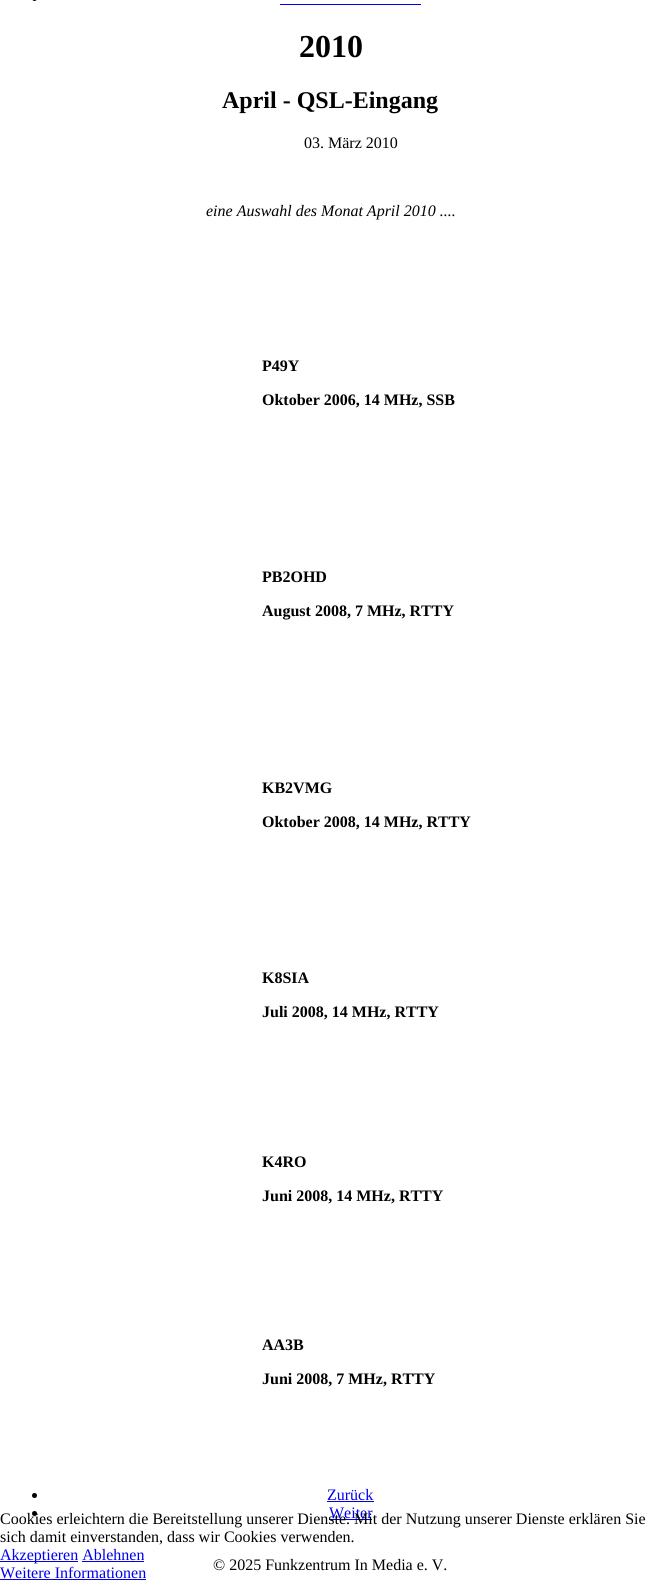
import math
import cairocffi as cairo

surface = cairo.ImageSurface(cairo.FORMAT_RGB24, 661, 1582)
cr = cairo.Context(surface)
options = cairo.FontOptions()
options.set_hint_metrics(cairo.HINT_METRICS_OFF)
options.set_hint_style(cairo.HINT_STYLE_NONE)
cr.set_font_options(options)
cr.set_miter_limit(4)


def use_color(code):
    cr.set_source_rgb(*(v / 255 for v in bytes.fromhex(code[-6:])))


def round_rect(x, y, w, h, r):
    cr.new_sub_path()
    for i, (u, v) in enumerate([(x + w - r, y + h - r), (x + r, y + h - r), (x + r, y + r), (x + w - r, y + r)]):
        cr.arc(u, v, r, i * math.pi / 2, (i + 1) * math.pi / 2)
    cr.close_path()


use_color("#ffffff")
cr.paint()
use_color("#000000")
round_rect(32, -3, 5, 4, 2.5)
cr.fill()
use_color("#0000ee")
cr.rectangle(280, 4, 141, 1)
cr.fill()
cr.select_font_face("Liberation Serif", cairo.FONT_SLANT_NORMAL, cairo.FONT_WEIGHT_BOLD)
cr.set_font_size(32)
use_color("#000000")
cr.move_to(299, 57)
cr.show_text("2010")
cr.set_font_size(24)
cr.move_to(222, 108)
cr.show_text("April - QSL-Eingang")
cr.select_font_face("Liberation Serif")
cr.set_font_size(16)
cr.move_to(304, 148)
cr.show_text("03. März 2010")
cr.select_font_face("Liberation Serif", cairo.FONT_SLANT_ITALIC)
cr.move_to(206, 216)
cr.show_text("eine Auswahl des Monat April 2010 ....")
cr.select_font_face("Liberation Serif", cairo.FONT_SLANT_NORMAL, cairo.FONT_WEIGHT_BOLD)
cr.move_to(262, 371)
cr.show_text("P49Y")
cr.move_to(262, 405)
cr.show_text("Oktober 2006, 14 MHz, SSB")
cr.move_to(262, 582)
cr.show_text("PB2OHD")
cr.move_to(262, 616)
cr.show_text("August 2008, 7 MHz, RTTY")
cr.move_to(262, 793)
cr.show_text("KB2VMG")
cr.move_to(262, 827)
cr.show_text("Oktober 2008, 14 MHz, RTTY")
cr.move_to(262, 983)
cr.show_text("K8SIA")
cr.move_to(262, 1017)
cr.show_text("Juli 2008, 14 MHz, RTTY")
cr.move_to(262, 1167)
cr.show_text("K4RO")
cr.move_to(262, 1201)
cr.show_text("Juni 2008, 14 MHz, RTTY")
cr.move_to(262, 1350)
cr.show_text("AA3B")
cr.move_to(262, 1384)
cr.show_text("Juni 2008, 7 MHz, RTTY")
cr.new_path()
cr.arc(34.5, 1495.5, 2.5, 0, 2 * math.pi)
cr.fill()
cr.select_font_face("Liberation Serif")
use_color("#0000ee")
cr.move_to(327, 1500)
cr.show_text("Zurück")
cr.rectangle(327, 1501, 47, 1)
cr.fill()
use_color("#000000")
cr.arc(34.5, 1513.5, 2.5, 0, 2 * math.pi)
cr.fill()
use_color("#0000ee")
cr.move_to(329, 1518)
cr.show_text("Weiter")
cr.rectangle(329, 1519, 43, 1)
cr.fill()
use_color("#000000")
cr.move_to(213, 1570)
cr.show_text("© 2025 Funkzentrum In Media e. V.")
cr.move_to(0, 1524)
cr.show_text("Cookies erleichtern die Bereitstellung unserer Dienste. Mit der Nutzung unserer Dienste erklären Sie")
cr.move_to(0, 1542)
cr.show_text("sich damit einverstanden, dass wir Cookies verwenden.")
use_color("#0000ee")
cr.rectangle(0, 1561, 78, 1)
cr.fill()
cr.move_to(0, 1560)
cr.show_text("Akzeptieren Ablehnen")
cr.rectangle(82, 1561, 62, 1)
cr.fill()
cr.move_to(0, 1578)
cr.show_text("Weitere Informationen")
cr.rectangle(0, 1579, 146, 1)
cr.fill()
surface.write_to_png("result.png")
